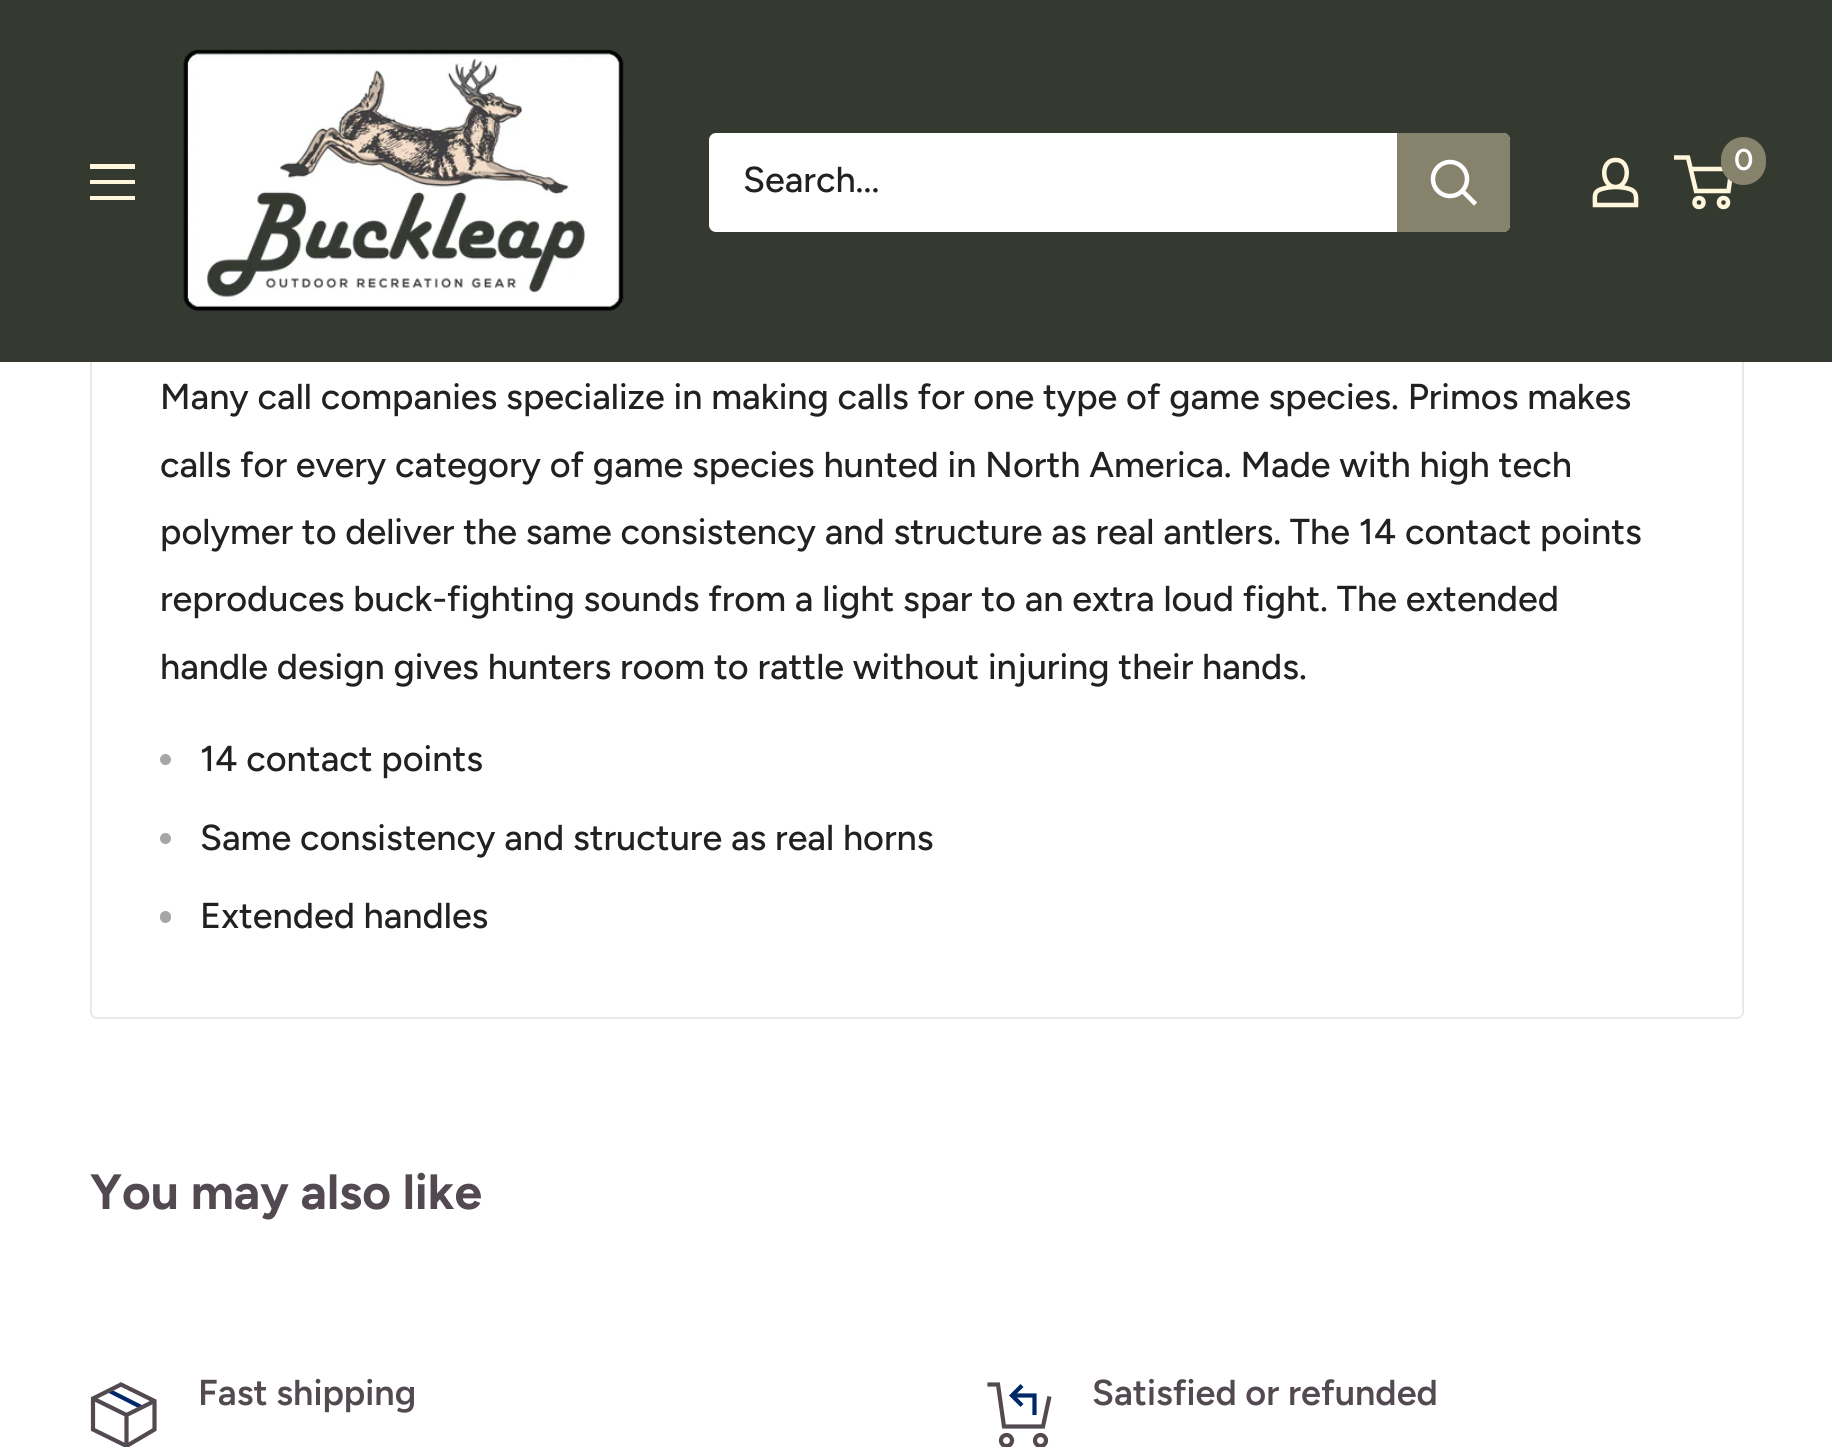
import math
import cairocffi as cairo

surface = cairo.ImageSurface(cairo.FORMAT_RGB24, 1832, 1447)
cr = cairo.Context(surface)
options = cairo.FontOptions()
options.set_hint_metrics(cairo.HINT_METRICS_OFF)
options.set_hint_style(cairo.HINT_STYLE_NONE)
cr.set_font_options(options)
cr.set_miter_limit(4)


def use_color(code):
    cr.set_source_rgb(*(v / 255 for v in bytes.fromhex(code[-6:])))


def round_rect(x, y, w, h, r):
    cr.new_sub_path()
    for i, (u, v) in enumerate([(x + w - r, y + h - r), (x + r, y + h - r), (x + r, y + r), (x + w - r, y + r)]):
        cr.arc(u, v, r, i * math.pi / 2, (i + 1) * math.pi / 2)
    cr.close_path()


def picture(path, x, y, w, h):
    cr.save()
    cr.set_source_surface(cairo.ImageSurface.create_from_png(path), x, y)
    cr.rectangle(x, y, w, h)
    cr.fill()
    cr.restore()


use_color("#ffffff")
cr.paint()
round_rect(91, 10, 1652, 1008, 6)
use_color("#e8e8e8")
cr.stroke()
use_color("#353a31")
cr.rectangle(0, 0, 1832, 362)
cr.fill()
picture("img1.png", 180, 49, 445, 263)
cr.new_path()
cr.move_to(1615.5, 187)
cr.curve_to(1619.5, 187, 1624, 187.5, 1628, 188.5)
cr.curve_to(1637.5, 191, 1636, 196.5, 1636, 205)
cr.line_to(1595, 205)
cr.curve_to(1595, 195.5, 1593, 191, 1603.5, 188.5)
cr.curve_to(1607.5, 187.5, 1611.5, 187, 1615.5, 187)
cr.close_path()
cr.move_to(1615.5, 187)
cr.curve_to(1601.5, 187, 1599.5, 160, 1615.5, 160)
cr.curve_to(1631.5, 159.5, 1629.5, 187, 1615.5, 187)
cr.close_path()
use_color("#fff6db")
cr.set_line_width(4.5)
cr.stroke()
cr.arc(1699, 202.5, 4.5, 0, 2 * math.pi)
cr.stroke()
cr.arc(1723.5, 202.5, 4.5, 0, 2 * math.pi)
cr.stroke()
cr.new_path()
cr.move_to(1690.5, 169)
cr.line_to(1731.5, 169)
cr.line_to(1728.5, 191)
cr.line_to(1696, 191)
cr.line_to(1688, 157.5)
cr.line_to(1674, 157.5)
cr.stroke()
use_color("#86826c")
round_rect(1721, 137, 45, 48, 22.5)
cr.fill()
cr.select_font_face("Figtree SemiBold")
cr.set_font_size(30)
use_color("#ffffff")
cr.move_to(1734, 170)
cr.show_text("0")
use_color("#fff6db")
cr.set_fill_rule(cairo.FILL_RULE_EVEN_ODD)
cr.new_path()
cr.move_to(90, 196)
cr.line_to(135, 196)
cr.line_to(135, 200)
cr.line_to(90, 200)
cr.close_path()
cr.move_to(90, 164)
cr.line_to(135, 164)
cr.line_to(135, 169)
cr.line_to(90, 169)
cr.close_path()
cr.move_to(90, 180)
cr.line_to(135, 180)
cr.line_to(135, 184)
cr.line_to(90, 184)
cr.close_path()
cr.fill()
use_color("#ffffff")
round_rect(709, 133, 801, 99, 7)
cr.fill()
cr.select_font_face("Figtree Medium")
cr.set_font_size(36)
use_color("#222021")
cr.move_to(743, 192)
cr.show_text("Search...")
use_color("#86826c")
cr.new_path()
cr.move_to(1397, 133)
cr.line_to(1503, 133)
cr.curve_to(1507, 133, 1510, 136, 1510, 140)
cr.line_to(1510, 225)
cr.curve_to(1510, 229, 1507, 232, 1503, 232)
cr.line_to(1397, 232)
cr.close_path()
cr.fill()
cr.new_path()
cr.move_to(1474, 202.5)
cr.line_to(1462.5, 191)
use_color("#ffffff")
cr.set_line_cap(cairo.LINE_CAP_SQUARE)
cr.stroke()
cr.arc(1450, 179, 17, 0, 2 * math.pi)
cr.set_line_cap(cairo.LINE_CAP_BUTT)
cr.stroke()
use_color("#222021")
cr.move_to(160, 409)
cr.show_text("Many call companies specialize in making calls for one type of game species. Primos makes")
cr.move_to(160, 477)
cr.show_text("calls for every category of game species hunted in North America. Made with high tech")
cr.move_to(160, 544)
cr.show_text("polymer to deliver the same consistency and structure as real antlers. The 14 contact points")
cr.move_to(160, 611)
cr.show_text("reproduces buck-fighting sounds from a light spar to an extra loud fight. The extended")
cr.move_to(160, 679)
cr.show_text("handle design gives hunters room to rattle without injuring their hands.")
use_color("#a7a6a6")
cr.new_path()
cr.arc(165.5, 759.5, 5.5, 0, 2 * math.pi)
cr.fill()
use_color("#222021")
cr.move_to(200, 771)
cr.show_text("14 contact points")
use_color("#a7a6a6")
cr.new_path()
cr.arc(165.5, 838.5, 5.5, 0, 2 * math.pi)
cr.fill()
use_color("#222021")
cr.move_to(200, 850)
cr.show_text("Same consistency and structure as real horns")
use_color("#a7a6a6")
round_rect(160, 911, 11, 12, 5.5)
cr.fill()
use_color("#222021")
cr.move_to(200, 928)
cr.show_text("Extended handles")
cr.select_font_face("Figtree", cairo.FONT_SLANT_NORMAL, cairo.FONT_WEIGHT_BOLD)
cr.set_font_size(49.5)
use_color("#524a50")
cr.move_to(90, 1209)
cr.show_text("You may also like")
cr.new_path()
cr.move_to(108.5, 1390.5)
cr.line_to(142, 1407.5)
use_color("#002868")
cr.set_line_width(4.2)
cr.stroke()
cr.new_path()
cr.move_to(154.5, 1401)
cr.line_to(126.5, 1415)
cr.line_to(93, 1398.5)
cr.move_to(126.5, 1415)
cr.line_to(126.5, 1446)
use_color("#524a50")
cr.stroke()
cr.new_path()
cr.move_to(154.5, 1401)
cr.line_to(154.5, 1429.5)
cr.line_to(126.5, 1446)
cr.line_to(93, 1429.5)
cr.line_to(93, 1398.5)
cr.line_to(121, 1384.5)
cr.close_path()
cr.set_line_cap(cairo.LINE_CAP_SQUARE)
cr.stroke()
cr.select_font_face("Figtree SemiBold")
cr.set_font_size(36)
cr.move_to(198, 1405)
cr.show_text("Fast shipping")
cr.new_path()
cr.move_to(1012, 1395.5)
cr.line_to(1034.5, 1395.5)
cr.line_to(1034.5, 1415)
use_color("#002868")
cr.set_line_cap(cairo.LINE_CAP_BUTT)
cr.stroke()
cr.new_path()
cr.move_to(1020.5, 1404)
cr.line_to(1012, 1395.5)
cr.line_to(1020.5, 1387)
cr.set_line_cap(cairo.LINE_CAP_SQUARE)
cr.stroke()
cr.new_path()
cr.move_to(1049, 1398.5)
cr.line_to(1043, 1426.5)
cr.line_to(1004, 1426.5)
cr.line_to(998, 1384.5)
cr.line_to(989.5, 1384.5)
use_color("#524a50")
cr.stroke()
cr.arc(1006.5, 1440.5, 5.5, 0, 2 * math.pi)
cr.set_line_cap(cairo.LINE_CAP_BUTT)
cr.stroke()
cr.arc(1040.5, 1440.5, 5.5, 0, 2 * math.pi)
cr.stroke()
cr.move_to(1092, 1405)
cr.show_text("Satisfied or refunded")
surface.write_to_png("result.png")
